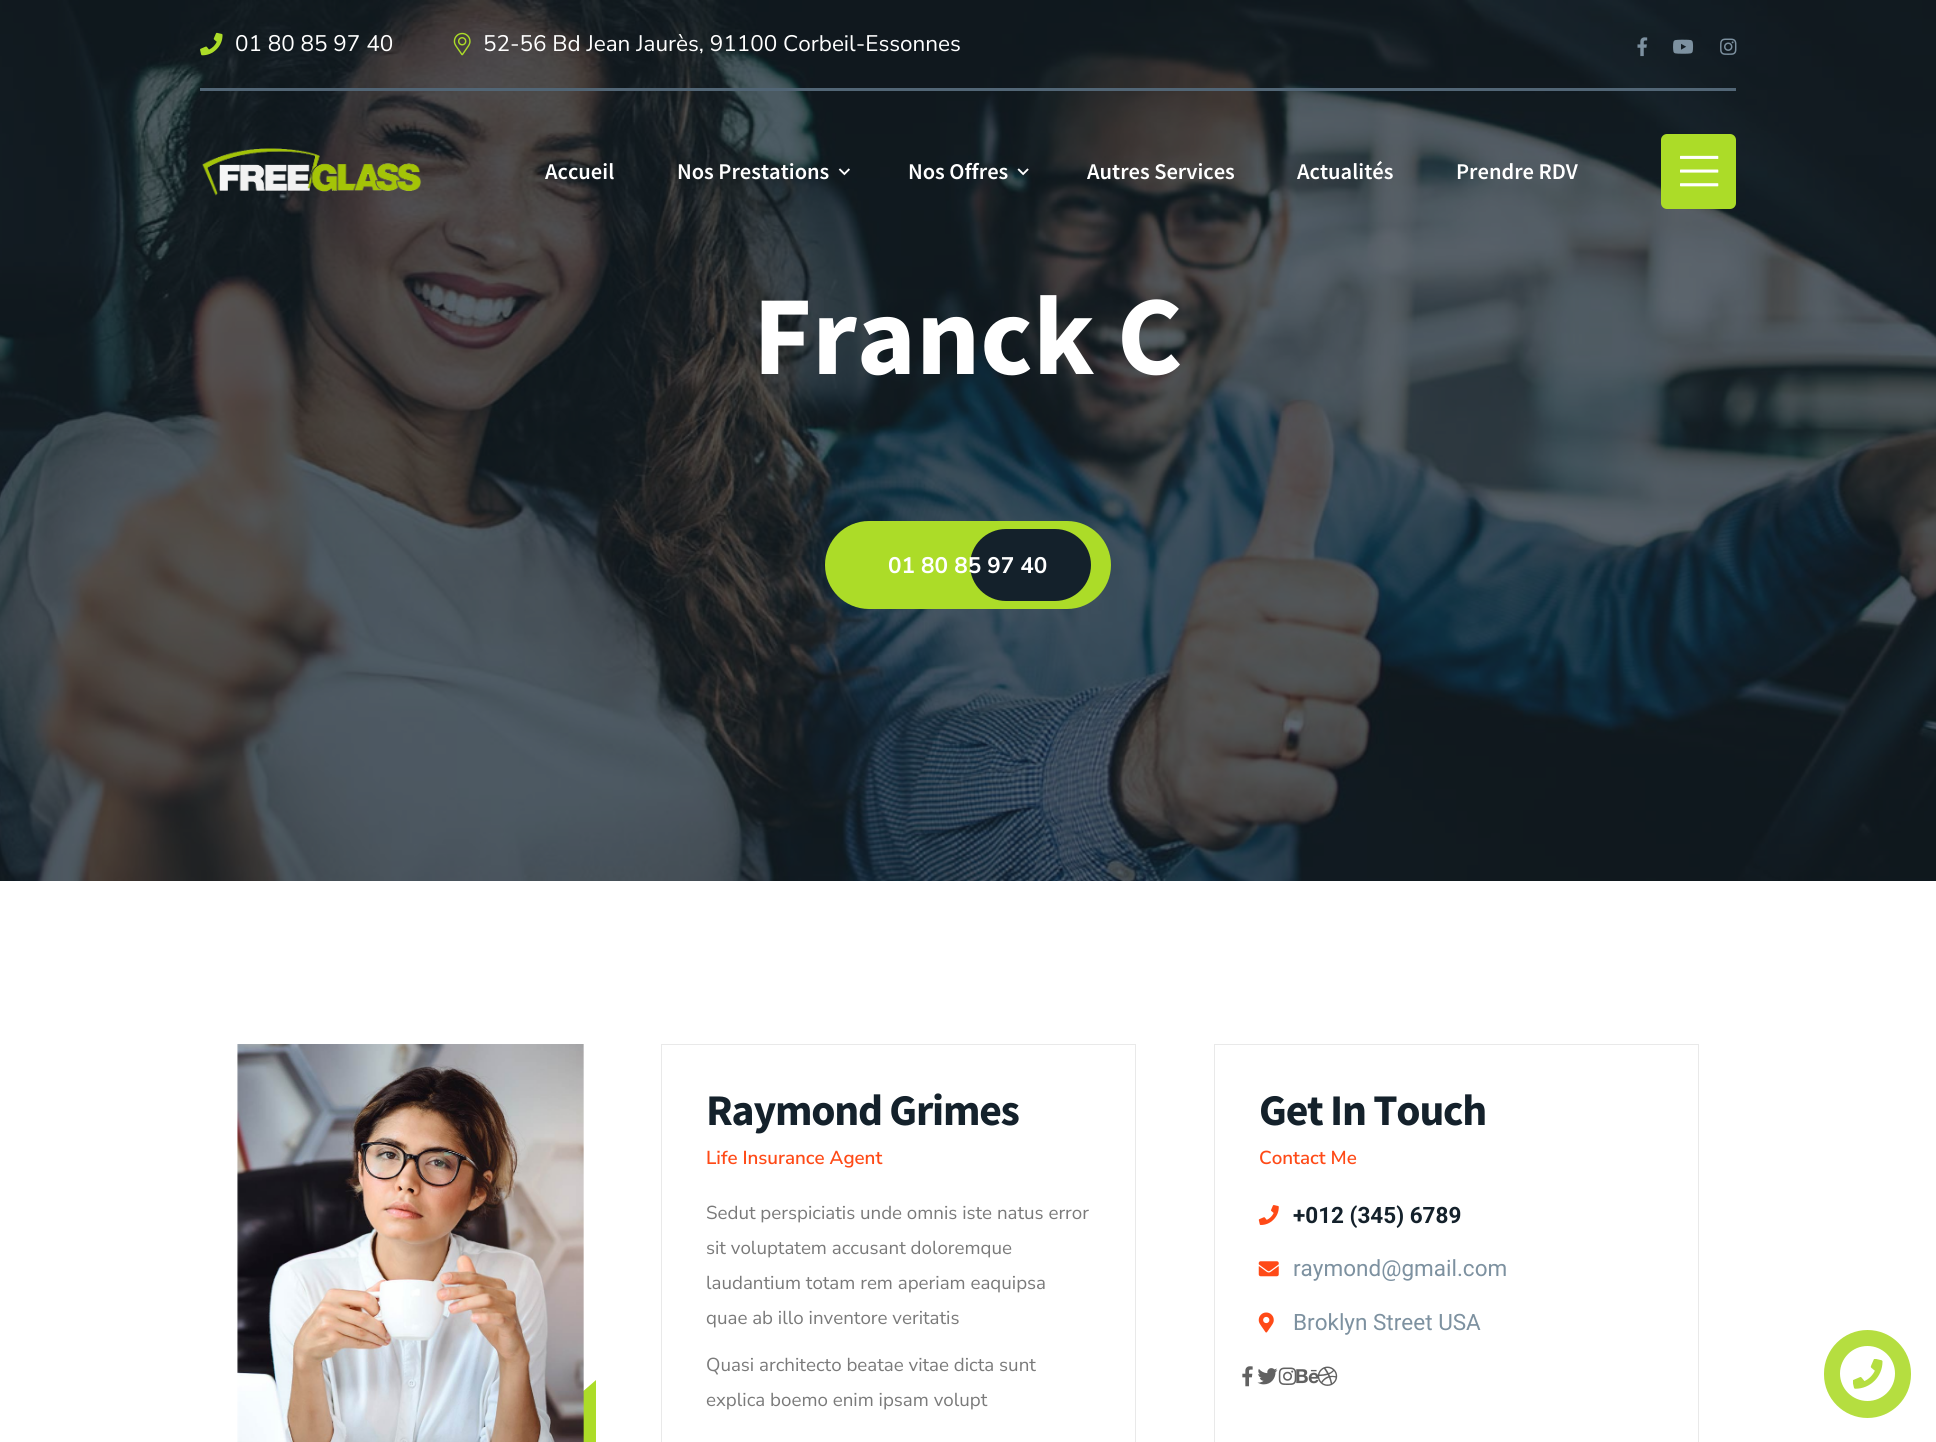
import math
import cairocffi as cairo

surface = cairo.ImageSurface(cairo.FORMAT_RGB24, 1936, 1442)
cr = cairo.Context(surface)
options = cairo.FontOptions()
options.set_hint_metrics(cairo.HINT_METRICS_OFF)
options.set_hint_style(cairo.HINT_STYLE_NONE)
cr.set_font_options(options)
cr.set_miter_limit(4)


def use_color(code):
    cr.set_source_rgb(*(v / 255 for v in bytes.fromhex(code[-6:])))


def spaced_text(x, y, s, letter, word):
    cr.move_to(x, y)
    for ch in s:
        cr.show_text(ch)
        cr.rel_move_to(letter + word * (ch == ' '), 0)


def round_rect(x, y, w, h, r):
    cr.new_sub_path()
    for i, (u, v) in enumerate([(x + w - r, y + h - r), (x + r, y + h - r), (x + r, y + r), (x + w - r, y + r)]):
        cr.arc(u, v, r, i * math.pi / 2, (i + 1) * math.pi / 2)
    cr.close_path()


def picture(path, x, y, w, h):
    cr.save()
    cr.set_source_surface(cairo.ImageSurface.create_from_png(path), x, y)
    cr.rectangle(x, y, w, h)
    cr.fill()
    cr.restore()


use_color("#ffffff")
cr.paint()
picture("img10.png", 0, 0, 1936, 881)
use_color("#526676")
cr.rectangle(200, 88, 1536, 3)
cr.fill()
picture("img1.png", 200, 32, 23, 24)
cr.select_font_face("Nunito Sans")
cr.set_font_size(22.5)
use_color("#ffffff")
cr.move_to(235, 51)
cr.show_text("01 80 85 97 40")
picture("img2.png", 453, 32, 18, 24)
cr.move_to(483, 51)
cr.show_text("52-56 Bd Jean Jaurès, 91100 Corbeil-Essonnes")
picture("img3.png", 1637, 37, 11, 20)
picture("img4.png", 1673, 39, 21, 15)
picture("img5.png", 1720, 38, 17, 17)
picture("img6.png", 202, 148, 220, 48)
cr.select_font_face("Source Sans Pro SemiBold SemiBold")
cr.move_to(545, 179)
cr.show_text("Accueil")
cr.move_to(677, 179)
cr.show_text("Nos Prestations")
picture("img7.png", 838, 168, 12, 8)
cr.move_to(908, 179)
cr.show_text("Nos Offres")
picture("img8.png", 1017, 168, 12, 8)
cr.move_to(1087, 179)
cr.show_text("Autres Services")
cr.move_to(1297, 179)
cr.show_text("Actualités")
cr.move_to(1456, 179)
cr.show_text("Prendre RDV")
use_color("#acdc28")
round_rect(1661, 134, 75, 75, 6)
cr.fill()
picture("img9.png", 1680, 155, 39, 32)
cr.select_font_face("Source Sans Pro", cairo.FONT_SLANT_NORMAL, cairo.FONT_WEIGHT_BOLD)
cr.set_font_size(112.5)
use_color("#ffffff")
cr.move_to(753, 374)
cr.show_text("Franck C")
use_color("#acdc28")
round_rect(825, 521, 286, 88, 44)
cr.fill()
use_color("#14212b")
round_rect(970, 529, 121, 72, 36)
cr.fill()
cr.select_font_face("Nunito Sans", cairo.FONT_SLANT_NORMAL, cairo.FONT_WEIGHT_BOLD)
cr.set_font_size(22.5)
use_color("#ffffff")
cr.move_to(888, 573)
cr.show_text("01 80 85 97 40")
use_color("#acdc28")
cr.new_path()
cr.move_to(596, 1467)
cr.line_to(596, 1380)
cr.line_to(496, 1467)
cr.close_path()
cr.fill()
picture("img11.png", 237, 1044, 347, 398)
cr.rectangle(661.5, 1044.5, 474, 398)
use_color("#e9e9e9")
cr.set_line_width(1)
cr.stroke()
cr.select_font_face("Source Sans Pro", cairo.FONT_SLANT_NORMAL, cairo.FONT_WEIGHT_BOLD)
cr.set_font_size(43.75)
use_color("#14212b")
spaced_text(706, 1125, "Raymond Grimes", -1.25, 0)
cr.select_font_face("Nunito Sans SemiBold")
cr.set_font_size(18.75)
use_color("#ff4a17")
cr.move_to(706, 1164)
cr.show_text("Life Insurance Agent")
cr.select_font_face("Nunito Sans")
use_color("#7a7a7a")
cr.move_to(706, 1219)
cr.show_text("Sedut perspiciatis unde omnis iste natus error")
cr.move_to(706, 1254)
cr.show_text("sit voluptatem accusant doloremque")
cr.move_to(706, 1289)
cr.show_text("laudantium totam rem aperiam eaquipsa")
cr.move_to(706, 1324)
cr.show_text("quae ab illo inventore veritatis")
cr.move_to(706, 1371)
cr.show_text("Quasi architecto beatae vitae dicta sunt")
cr.move_to(706, 1406)
cr.show_text("explica boemo enim ipsam volupt")
cr.rectangle(1214.5, 1044.5, 484, 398)
use_color("#e9e9e9")
cr.stroke()
cr.select_font_face("Source Sans Pro", cairo.FONT_SLANT_NORMAL, cairo.FONT_WEIGHT_BOLD)
cr.set_font_size(43.75)
use_color("#14212b")
spaced_text(1259, 1125, "Get In Touch", -1.25, 0)
cr.select_font_face("Nunito Sans SemiBold")
cr.set_font_size(18.75)
use_color("#ff4a17")
cr.move_to(1259, 1164)
cr.show_text("Contact Me")
picture("img12.png", 1258, 1205, 21, 20)
cr.select_font_face("Roboto", cairo.FONT_SLANT_NORMAL, cairo.FONT_WEIGHT_BOLD)
cr.set_font_size(22.5)
use_color("#14212b")
cr.move_to(1293, 1223)
cr.show_text("+012 (345) 6789")
picture("img13.png", 1258, 1261, 21, 16)
cr.select_font_face("Roboto")
use_color("#7d91a0")
cr.move_to(1293, 1276)
cr.show_text("raymond@gmail.com")
picture("img14.png", 1258, 1312, 16, 21)
cr.move_to(1293, 1330)
cr.show_text("Broklyn Street USA")
picture("img15.png", 1242, 1366, 11, 21)
picture("img16.png", 1257, 1368, 21, 17)
picture("img17.png", 1278, 1367, 19, 18)
picture("img18.png", 1296, 1369, 23, 15)
picture("img19.png", 1318, 1366, 20, 20)
use_color("#b5de40")
round_rect(1824, 1330, 87, 88, 43.5)
cr.fill()
use_color("#ffffff")
cr.arc(1867.5, 1373.5, 27.5, 0, 2 * math.pi)
cr.fill()
picture("img20.png", 1853, 1359, 30, 30)
surface.write_to_png("result.png")
